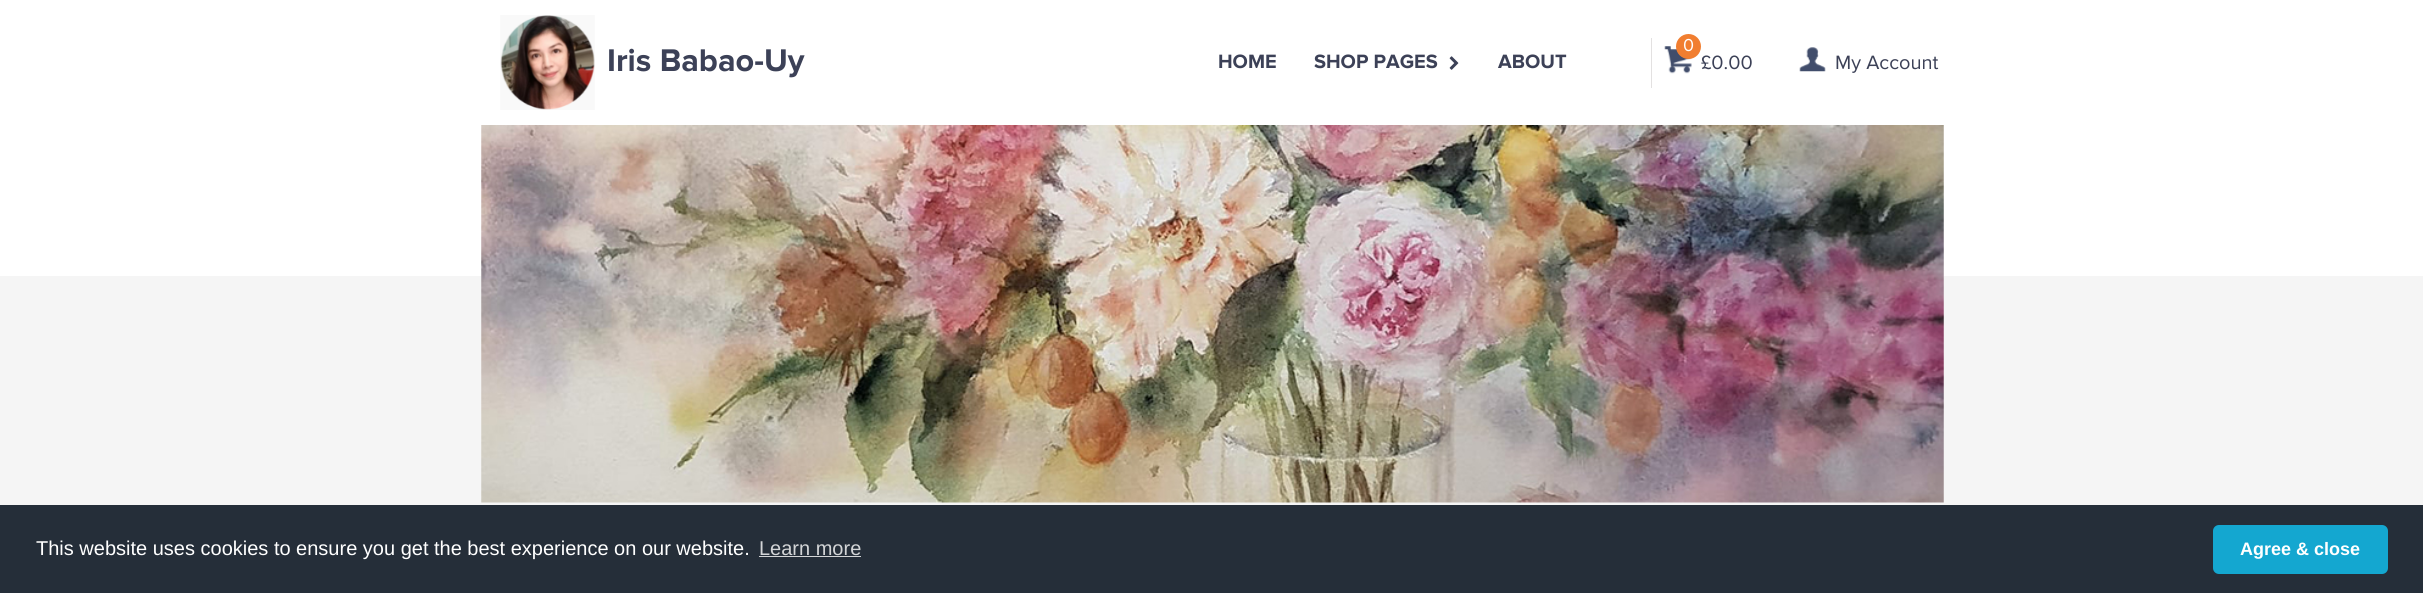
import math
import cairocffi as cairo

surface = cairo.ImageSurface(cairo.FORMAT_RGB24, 2423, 593)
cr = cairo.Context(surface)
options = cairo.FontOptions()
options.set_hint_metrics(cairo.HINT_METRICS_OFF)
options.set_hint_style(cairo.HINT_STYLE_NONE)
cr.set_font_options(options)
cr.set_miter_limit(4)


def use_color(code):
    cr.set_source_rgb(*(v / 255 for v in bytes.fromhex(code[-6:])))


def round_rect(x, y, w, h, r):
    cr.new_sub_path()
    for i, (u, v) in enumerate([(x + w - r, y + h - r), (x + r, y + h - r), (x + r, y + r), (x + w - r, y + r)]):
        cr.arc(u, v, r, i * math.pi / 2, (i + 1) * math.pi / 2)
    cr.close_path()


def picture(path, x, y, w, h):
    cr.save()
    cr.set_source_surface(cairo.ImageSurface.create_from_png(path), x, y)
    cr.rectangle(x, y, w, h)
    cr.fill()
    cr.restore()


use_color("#f5f5f5")
cr.paint()
use_color("#ffffff")
cr.rectangle(0, 0, 2423, 276)
cr.fill()
picture("img1.png", 481, 125, 1463, 378)
picture("img2.png", 500, 15, 95, 95)
cr.select_font_face("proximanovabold", cairo.FONT_SLANT_NORMAL, cairo.FONT_WEIGHT_BOLD)
cr.set_font_size(32.5)
use_color("#3c4157")
cr.move_to(607, 71)
cr.show_text("Iris Babao-Uy")
cr.set_font_size(20)
cr.move_to(1218, 68)
cr.show_text("HOME")
cr.move_to(1314, 68)
cr.show_text("SHOP PAGES")
picture("img3.png", 1449, 56, 10, 14)
cr.move_to(1498, 68)
cr.show_text("ABOUT")
use_color("#e3e1e1")
cr.rectangle(1651, 38, 1, 50)
cr.fill()
picture("img4.png", 1664, 46, 28, 28)
use_color("#f17e30")
cr.arc(1688.5, 46.5, 12.5, 0, 2 * math.pi)
cr.fill()
cr.select_font_face("Proxima Nova")
cr.set_font_size(18)
use_color("#ffffff")
cr.move_to(1683, 51)
cr.show_text("0")
cr.set_font_size(20)
use_color("#3c4157")
cr.move_to(1701, 69)
cr.show_text("£0.00")
picture("img5.png", 1799, 47, 27, 25)
cr.move_to(1835, 69)
cr.show_text("My Account")
use_color("#252e39")
cr.rectangle(0, 505, 2423, 88)
cr.fill()
cr.select_font_face("Liberation Sans")
use_color("#ffffff")
cr.move_to(36, 555)
cr.show_text("This website uses cookies to ensure you get the best experience on our website.")
use_color("#d3d5d7")
cr.move_to(759, 555)
cr.show_text("Learn more")
cr.rectangle(759, 556, 102, 1)
cr.fill()
use_color("#14a7d0")
round_rect(2213, 525, 175, 49, 6)
cr.fill()
cr.select_font_face("Liberation Sans", cairo.FONT_SLANT_NORMAL, cairo.FONT_WEIGHT_BOLD)
cr.set_font_size(18)
use_color("#ffffff")
cr.move_to(2240, 555)
cr.show_text("Agree & close")
surface.write_to_png("result.png")
